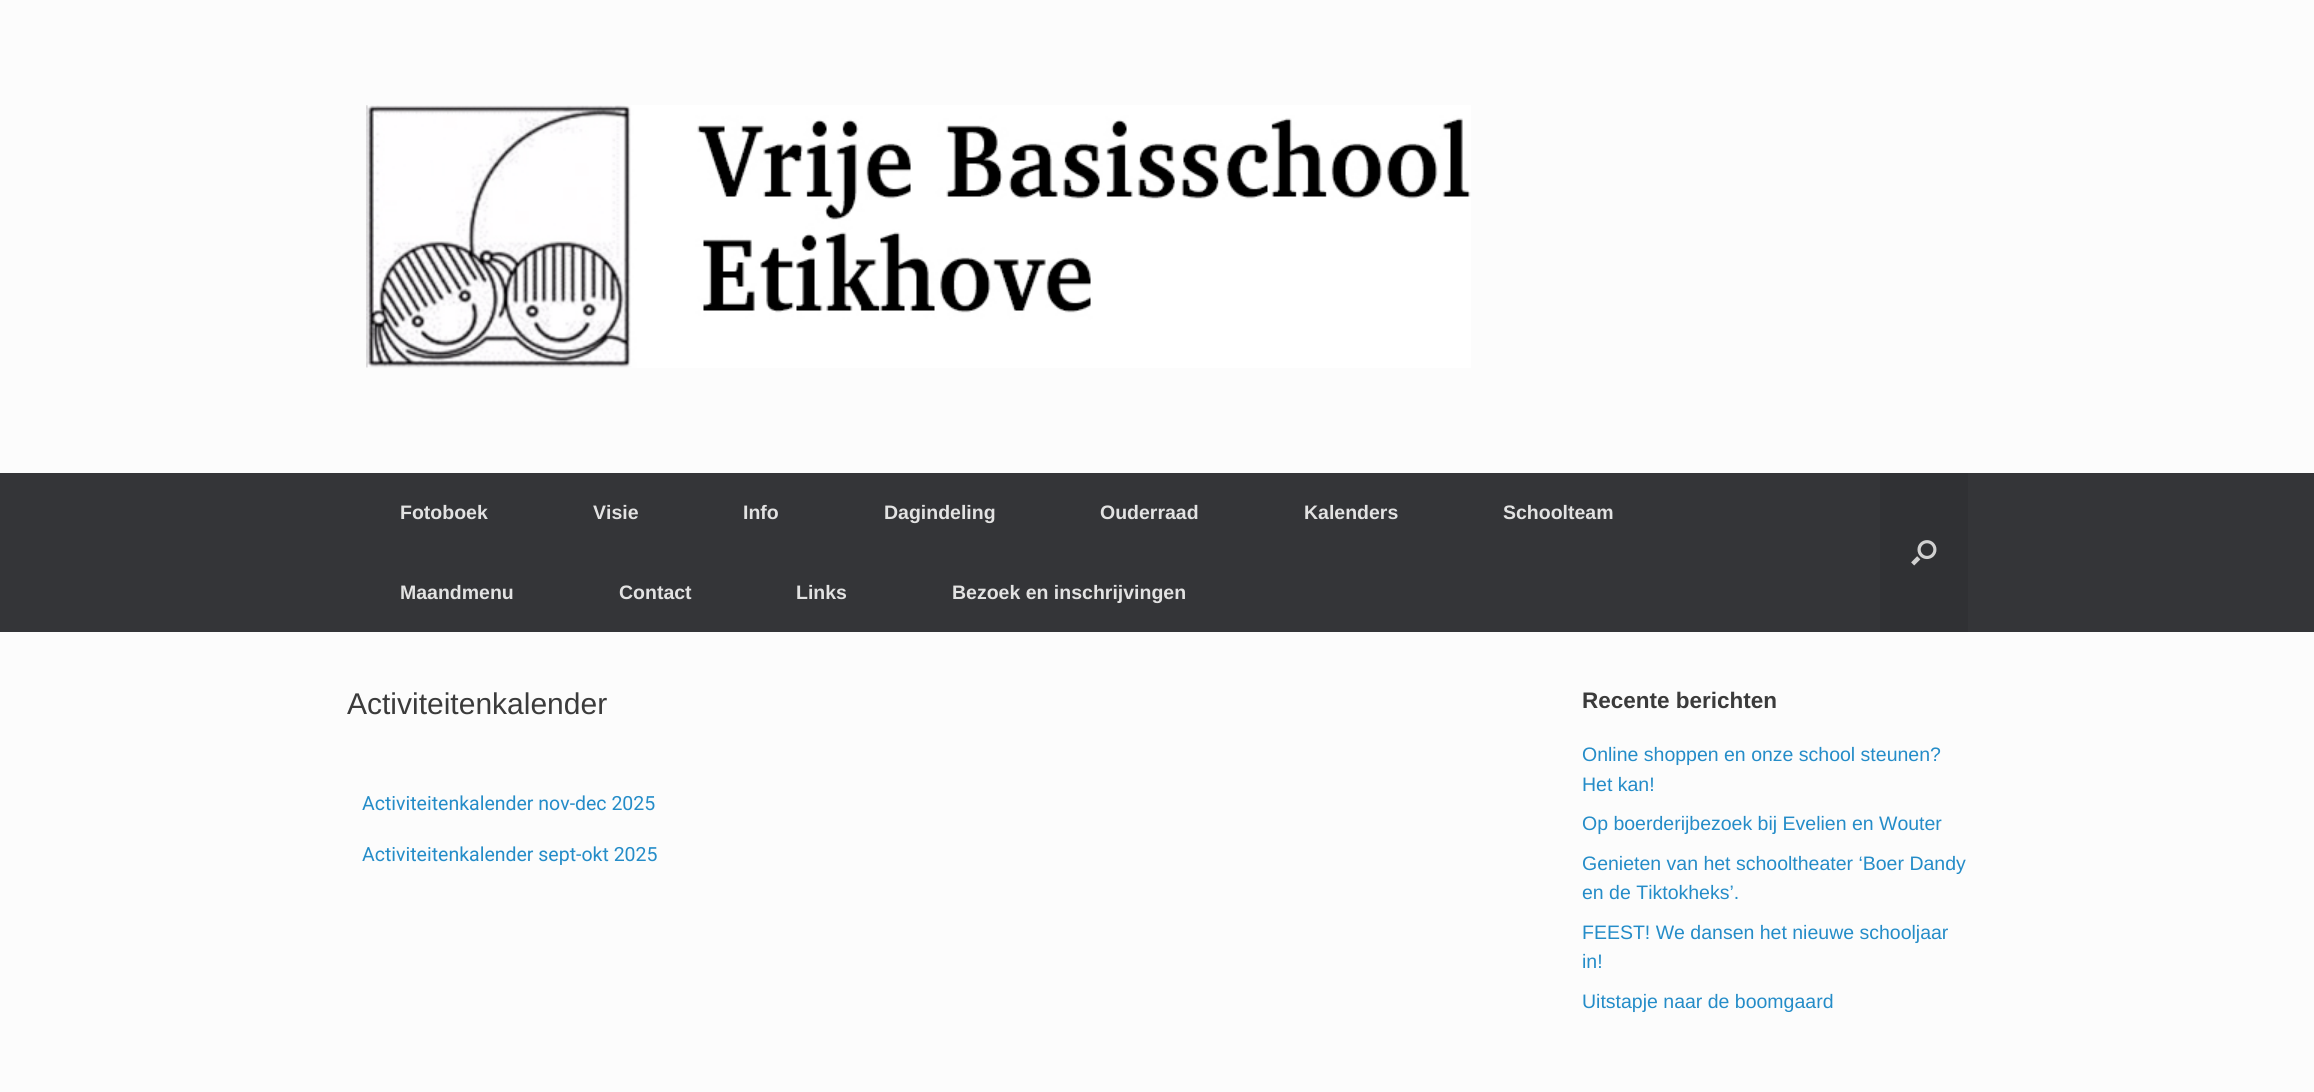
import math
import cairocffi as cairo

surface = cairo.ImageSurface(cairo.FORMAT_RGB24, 2314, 1092)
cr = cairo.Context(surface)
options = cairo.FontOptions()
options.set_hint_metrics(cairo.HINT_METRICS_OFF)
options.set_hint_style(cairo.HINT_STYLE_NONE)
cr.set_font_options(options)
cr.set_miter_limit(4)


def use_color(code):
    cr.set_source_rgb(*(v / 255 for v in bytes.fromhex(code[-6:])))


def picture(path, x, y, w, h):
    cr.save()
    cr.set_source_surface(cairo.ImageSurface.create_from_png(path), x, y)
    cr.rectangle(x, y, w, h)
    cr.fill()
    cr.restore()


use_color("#fcfcfc")
cr.paint()
picture("img1.png", 366, 105, 1105, 263)
use_color("#343538")
cr.rectangle(0, 473, 2314, 159)
cr.fill()
cr.select_font_face("Liberation Sans", cairo.FONT_SLANT_NORMAL, cairo.FONT_WEIGHT_BOLD)
cr.set_font_size(19.5)
use_color("#e2e2e2")
cr.move_to(400, 519)
cr.show_text("Fotoboek")
cr.move_to(593, 519)
cr.show_text("Visie")
cr.move_to(743, 519)
cr.show_text("Info")
cr.move_to(884, 519)
cr.show_text("Dagindeling")
cr.move_to(1100, 519)
cr.show_text("Ouderraad")
cr.move_to(1304, 519)
cr.show_text("Kalenders")
cr.move_to(1503, 519)
cr.show_text("Schoolteam")
cr.move_to(400, 599)
cr.show_text("Maandmenu")
cr.move_to(619, 599)
cr.show_text("Contact")
cr.move_to(796, 599)
cr.show_text("Links")
cr.move_to(952, 599)
cr.show_text("Bezoek en inschrijvingen")
use_color("#303134")
cr.rectangle(1880, 473, 88, 159)
cr.fill()
picture("img2.png", 1911, 540, 26, 26)
cr.select_font_face("Liberation Sans")
cr.set_font_size(30)
use_color("#3b3b3b")
cr.move_to(347, 714)
cr.show_text("Activiteitenkalender")
cr.select_font_face("Roboto")
cr.set_font_size(19.5)
use_color("#248cc8")
cr.move_to(362, 810)
cr.show_text("Activiteitenkalender nov-dec 2025")
cr.move_to(362, 861)
cr.show_text("Activiteitenkalender sept-okt 2025")
cr.select_font_face("Liberation Sans", cairo.FONT_SLANT_NORMAL, cairo.FONT_WEIGHT_BOLD)
cr.set_font_size(22.5)
use_color("#3b3b3b")
cr.move_to(1582, 708)
cr.show_text("Recente berichten")
cr.select_font_face("Liberation Sans")
cr.set_font_size(19.5)
use_color("#248cc8")
cr.move_to(1582, 761)
cr.show_text("Online shoppen en onze school steunen?")
cr.move_to(1582, 791)
cr.show_text("Het kan!")
cr.move_to(1582, 830)
cr.show_text("Op boerderijbezoek bij Evelien en Wouter")
cr.move_to(1582, 870)
cr.show_text("Genieten van het schooltheater ‘Boer Dandy")
cr.move_to(1582, 899)
cr.show_text("en de Tiktokheks’.")
cr.move_to(1582, 939)
cr.show_text("FEEST! We dansen het nieuwe schooljaar")
cr.move_to(1582, 968)
cr.show_text("in!")
cr.move_to(1582, 1008)
cr.show_text("Uitstapje naar de boomgaard")
surface.write_to_png("result.png")
